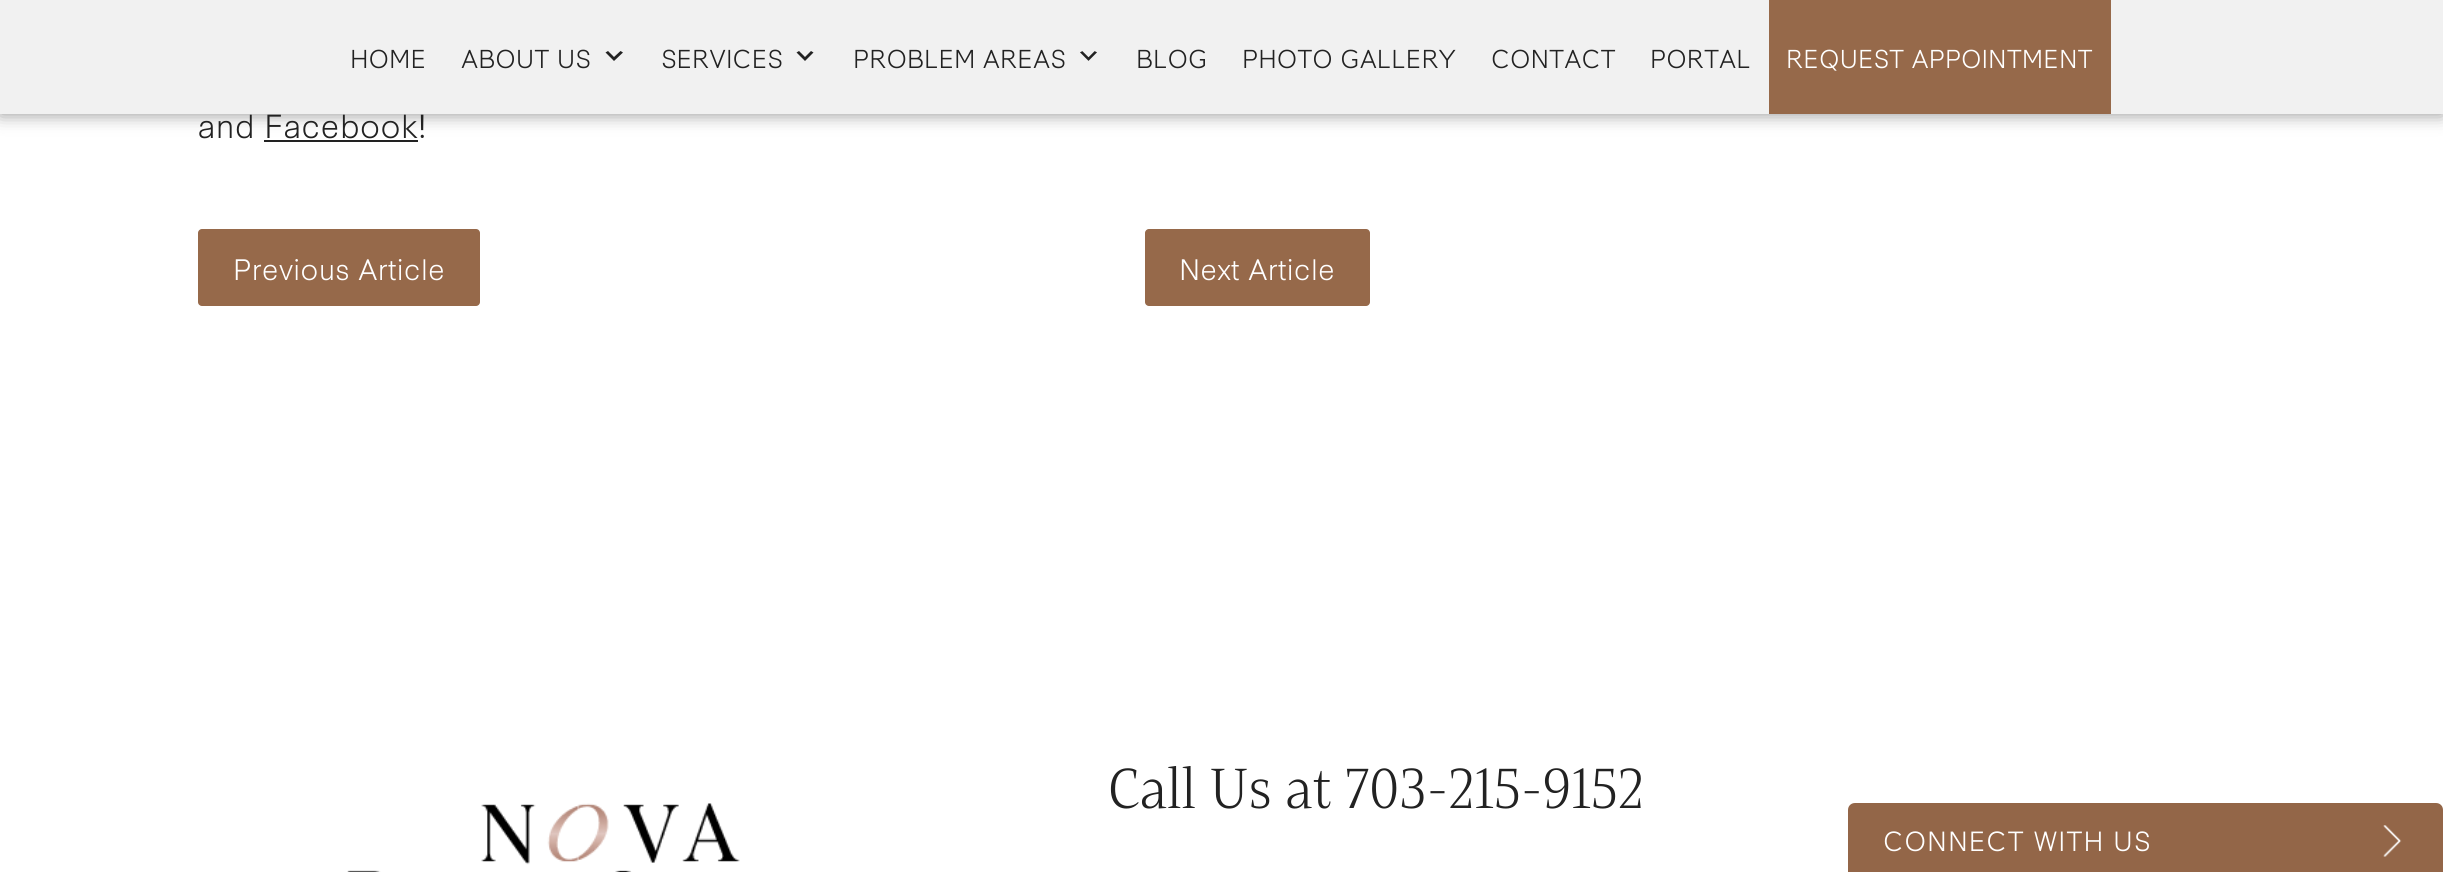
import math
import cairocffi as cairo

surface = cairo.ImageSurface(cairo.FORMAT_RGB24, 2443, 872)
cr = cairo.Context(surface)
options = cairo.FontOptions()
options.set_hint_metrics(cairo.HINT_METRICS_OFF)
options.set_hint_style(cairo.HINT_STYLE_NONE)
cr.set_font_options(options)
cr.set_miter_limit(4)


def use_color(code):
    cr.set_source_rgb(*(v / 255 for v in bytes.fromhex(code[-6:])))


def spaced_text(x, y, s, letter, word):
    cr.move_to(x, y)
    for ch in s:
        cr.show_text(ch)
        cr.rel_move_to(letter + word * (ch == ' '), 0)


def round_rect(x, y, w, h, r):
    cr.new_sub_path()
    for i, (u, v) in enumerate([(x + w - r, y + h - r), (x + r, y + h - r), (x + r, y + r), (x + w - r, y + r)]):
        cr.arc(u, v, r, i * math.pi / 2, (i + 1) * math.pi / 2)
    cr.close_path()


def shadow(x, y, w, h, r, blur, alpha):
    cr.push_group_with_content(cairo.CONTENT_ALPHA)
    cr.set_operator(cairo.OPERATOR_SOURCE)
    for i in range(15, -16, -2):
        e = blur * i / 6
        if min(w, h) + 2 * e > 0:
            cr.set_source_rgba(0, 0, 0, alpha * math.erfc((i - 1) / 8.5) / 2)
            round_rect(x - e, y - e, w + 2 * e, h + 2 * e, max(0, min(r + e + blur * .6, min(w, h) / 2 + e)))
            cr.fill()
    cr.mask(cr.pop_group())


def picture(path, x, y, w, h):
    cr.save()
    cr.set_source_surface(cairo.ImageSurface.create_from_png(path), x, y)
    cr.rectangle(x, y, w, h)
    cr.fill()
    cr.restore()


use_color("#ffffff")
cr.paint()
use_color("#222222")
cr.rectangle(264, 140, 154, 2)
cr.fill()
use_color("#222222")
shadow(0, 0, 2443, 114, 0, 9, 0.5)
use_color("#f1f1f1")
cr.rectangle(0, 0, 2443, 114)
cr.fill()
cr.select_font_face("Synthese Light")
cr.set_font_size(24.5)
use_color("#222222")
cr.move_to(350, 68)
cr.show_text("HOME")
cr.move_to(461, 68)
cr.show_text("ABOUT US")
cr.new_path()
cr.move_to(608, 51)
cr.line_to(614, 57)
cr.line_to(620.5, 51)
cr.line_to(623, 52.5)
cr.line_to(614, 61)
cr.line_to(605.5, 52.5)
cr.close_path()
cr.fill()
cr.move_to(661, 68)
cr.show_text("SERVICES")
cr.new_path()
cr.move_to(799, 51)
cr.line_to(805, 57)
cr.line_to(811, 51)
cr.line_to(813.5, 52.5)
cr.line_to(805, 61)
cr.line_to(796.5, 52.5)
cr.close_path()
cr.fill()
cr.move_to(853, 68)
cr.show_text("PROBLEM AREAS")
picture("img1.png", 1080, 51, 17, 10)
cr.move_to(1136, 68)
cr.show_text("BLOG")
cr.move_to(1242, 68)
cr.show_text("PHOTO GALLERY")
cr.move_to(1491, 68)
cr.show_text("CONTACT")
cr.move_to(1650, 68)
cr.show_text("PORTAL")
use_color("#96694a")
cr.rectangle(1769, 0, 342, 114)
cr.fill()
use_color("#ffffff")
cr.move_to(1786, 68)
cr.show_text("REQUEST APPOINTMENT")
cr.set_font_size(31.5)
use_color("#222222")
cr.move_to(198, 138)
cr.show_text("and Facebook!")
use_color("#96694a")
round_rect(198, 229, 282, 77, 4)
cr.fill()
cr.set_font_size(28)
use_color("#ffffff")
cr.move_to(233, 280)
cr.show_text("Previous Article")
use_color("#96694a")
round_rect(1145, 229, 225, 77, 4)
cr.fill()
use_color("#ffffff")
cr.move_to(1179, 280)
cr.show_text("Next Article")
cr.select_font_face("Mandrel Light")
cr.set_font_size(56)
use_color("#222222")
cr.move_to(1108, 808)
cr.show_text("Call Us at 703-215-9152")
picture("img2.png", 347, 803, 393, 69)
use_color("#936648")
cr.new_path()
cr.move_to(1855, 803)
cr.line_to(2436, 803)
cr.curve_to(2440, 803, 2443, 806, 2443, 810)
cr.line_to(2443, 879)
cr.line_to(1848, 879)
cr.line_to(1848, 810)
cr.curve_to(1848, 806, 1851, 803, 1855, 803)
cr.close_path()
cr.fill()
cr.select_font_face("Synthese Light")
cr.set_font_size(26.25)
use_color("#ffffff")
spaced_text(1883, 851, "CONNECT WITH US", 0.9, 0)
picture("img3.png", 2383, 825, 19, 32)
surface.write_to_png("result.png")
